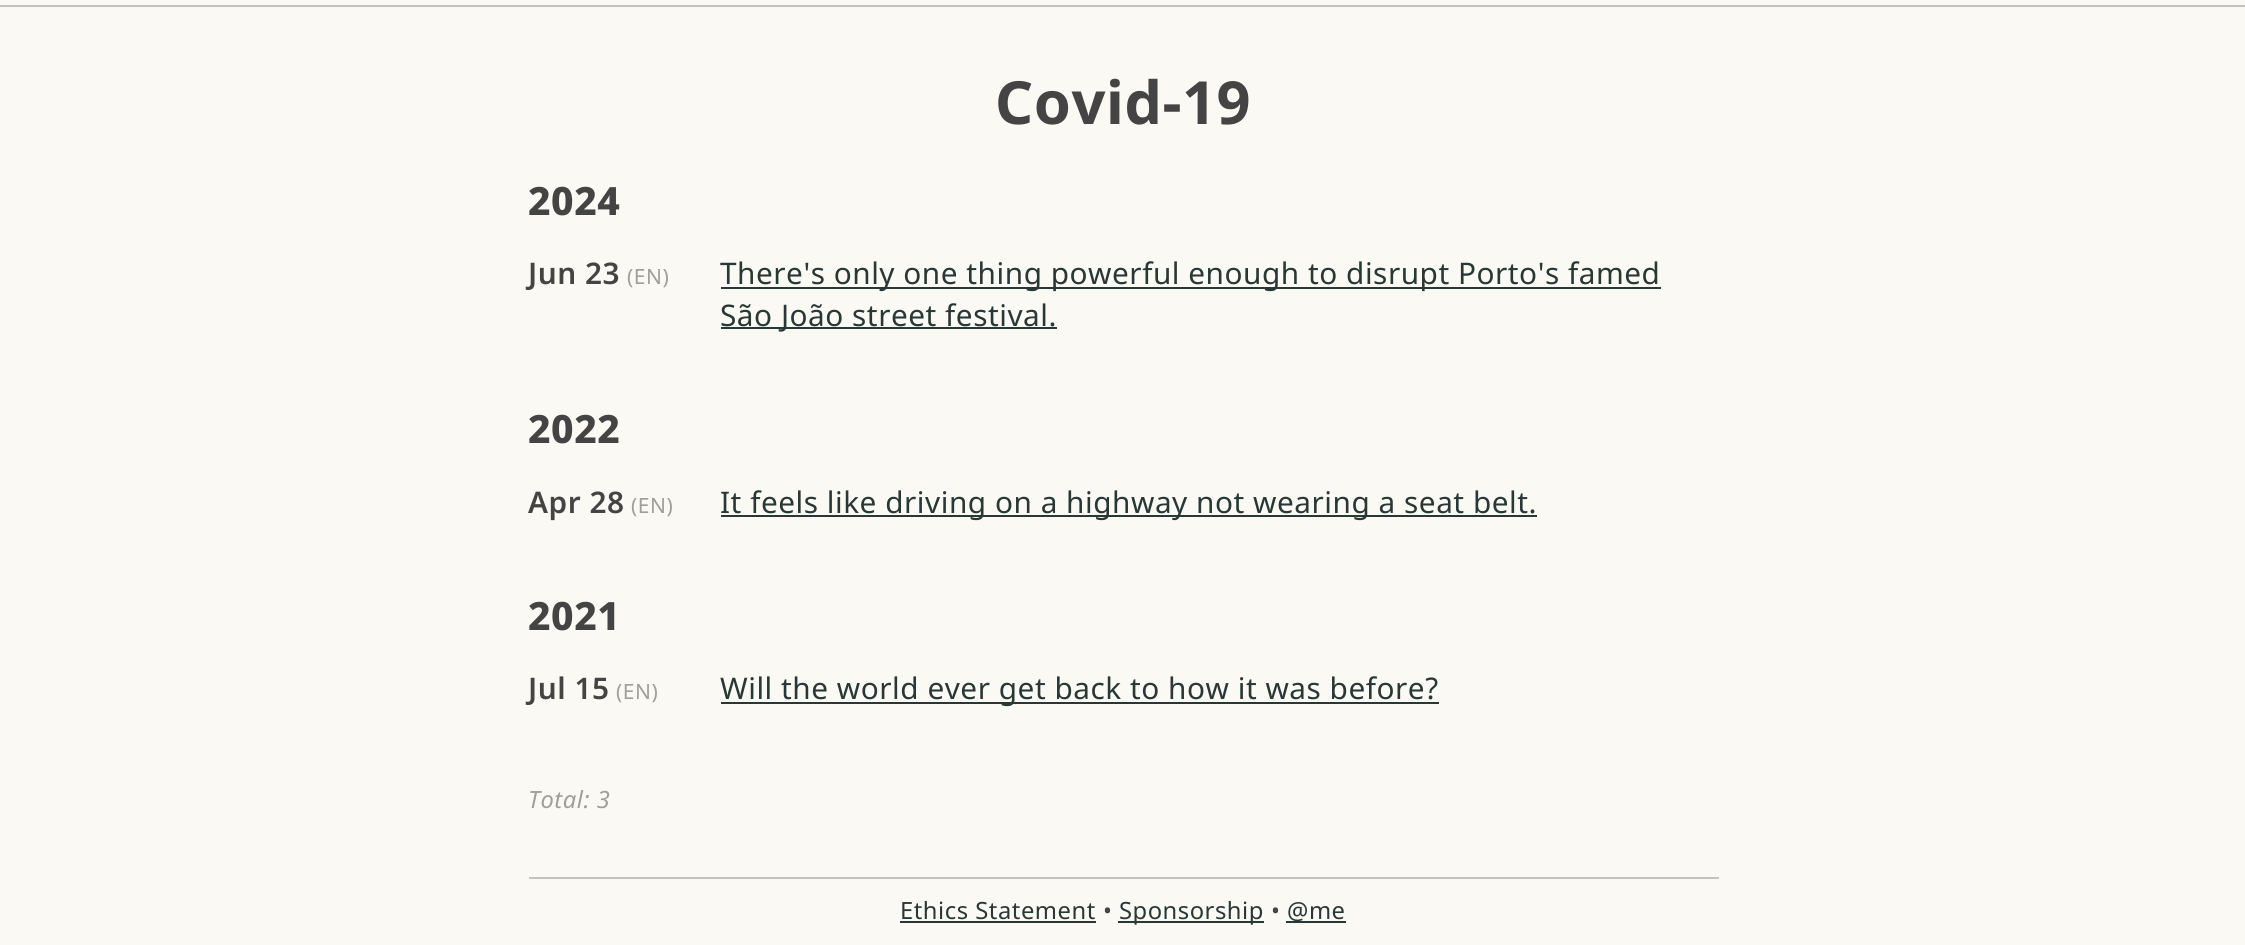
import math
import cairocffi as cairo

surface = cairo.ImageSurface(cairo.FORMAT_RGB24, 2245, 945)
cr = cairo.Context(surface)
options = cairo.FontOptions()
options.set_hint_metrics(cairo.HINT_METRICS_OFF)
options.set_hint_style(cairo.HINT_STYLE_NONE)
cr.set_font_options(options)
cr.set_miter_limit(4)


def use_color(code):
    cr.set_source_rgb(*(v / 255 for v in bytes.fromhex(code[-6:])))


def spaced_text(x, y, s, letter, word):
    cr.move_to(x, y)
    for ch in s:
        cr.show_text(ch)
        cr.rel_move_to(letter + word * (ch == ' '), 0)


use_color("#faf9f3")
cr.paint()
use_color("#c2c2c0")
cr.rectangle(0, 5, 2245, 2)
cr.fill()
cr.select_font_face("Noto Sans", cairo.FONT_SLANT_NORMAL, cairo.FONT_WEIGHT_BOLD)
cr.set_font_size(59.5)
use_color("#444444")
spaced_text(995, 124, "Covid-19", 0.53, 0)
cr.select_font_face("Noto Sans ExtraBold")
cr.set_font_size(39)
spaced_text(528, 215, "2024", 0.53, 0)
cr.select_font_face("Noto Sans SemiBold")
cr.set_font_size(29.75)
spaced_text(528, 284, "Jun 23", 0.53, 0)
cr.select_font_face("Noto Sans")
cr.set_font_size(21)
use_color("#9f9f9c")
spaced_text(627, 284, "(EN)", 0.53, 0)
use_color("#283837")
cr.rectangle(721, 287, 940, 2)
cr.fill()
cr.set_font_size(29.75)
spaced_text(720, 284, "There's only one thing powerful enough to disrupt Porto's famed", 0.53, 0)
cr.rectangle(721, 327, 336, 2)
cr.fill()
spaced_text(720, 326, "São João street festival.", 0.53, 0)
cr.select_font_face("Noto Sans ExtraBold")
cr.set_font_size(39)
use_color("#444444")
spaced_text(528, 443, "2022", 0.53, 0)
cr.select_font_face("Noto Sans SemiBold")
cr.set_font_size(29.75)
spaced_text(528, 513, "Apr 28", 0.53, 0)
cr.select_font_face("Noto Sans")
cr.set_font_size(21)
use_color("#9f9f9c")
spaced_text(631, 513, "(EN)", 0.53, 0)
use_color("#283837")
cr.rectangle(721, 515, 816, 2)
cr.fill()
cr.set_font_size(29.75)
spaced_text(720, 513, "It feels like driving on a highway not wearing a seat belt.", 0.53, 0)
cr.select_font_face("Noto Sans ExtraBold")
cr.set_font_size(39)
use_color("#444444")
spaced_text(528, 630, "2021", 0.53, 0)
cr.select_font_face("Noto Sans SemiBold")
cr.set_font_size(29.75)
spaced_text(528, 699, "Jul 15", 0.53, 0)
cr.select_font_face("Noto Sans")
cr.set_font_size(21)
use_color("#9f9f9c")
spaced_text(616, 699, "(EN)", 0.53, 0)
use_color("#283837")
cr.rectangle(721, 702, 718, 2)
cr.fill()
cr.set_font_size(29.75)
spaced_text(720, 699, "Will the world ever get back to how it was before?", 0.53, 0)
cr.select_font_face("Noto Sans", cairo.FONT_SLANT_ITALIC)
cr.set_font_size(23.75)
use_color("#9f9f9c")
spaced_text(528, 808, "Total: 3", 0.53, 0)
use_color("#c2c2c0")
cr.rectangle(529, 877, 1190, 2)
cr.fill()
cr.select_font_face("Noto Sans")
use_color("#283837")
spaced_text(900, 919, "Ethics Statement", 0.53, 0)
cr.rectangle(900, 921, 196, 2)
cr.fill()
use_color("#444444")
spaced_text(1103, 919, "•", 0.53, 0)
use_color("#283837")
cr.rectangle(1118, 921, 146, 2)
cr.fill()
spaced_text(1119, 919, "Sponsorship", 0.53, 0)
use_color("#444444")
spaced_text(1271, 919, "•", 0.53, 0)
use_color("#283837")
cr.rectangle(1286, 921, 60, 2)
cr.fill()
spaced_text(1287, 919, "@me", 0.53, 0)
surface.write_to_png("result.png")
